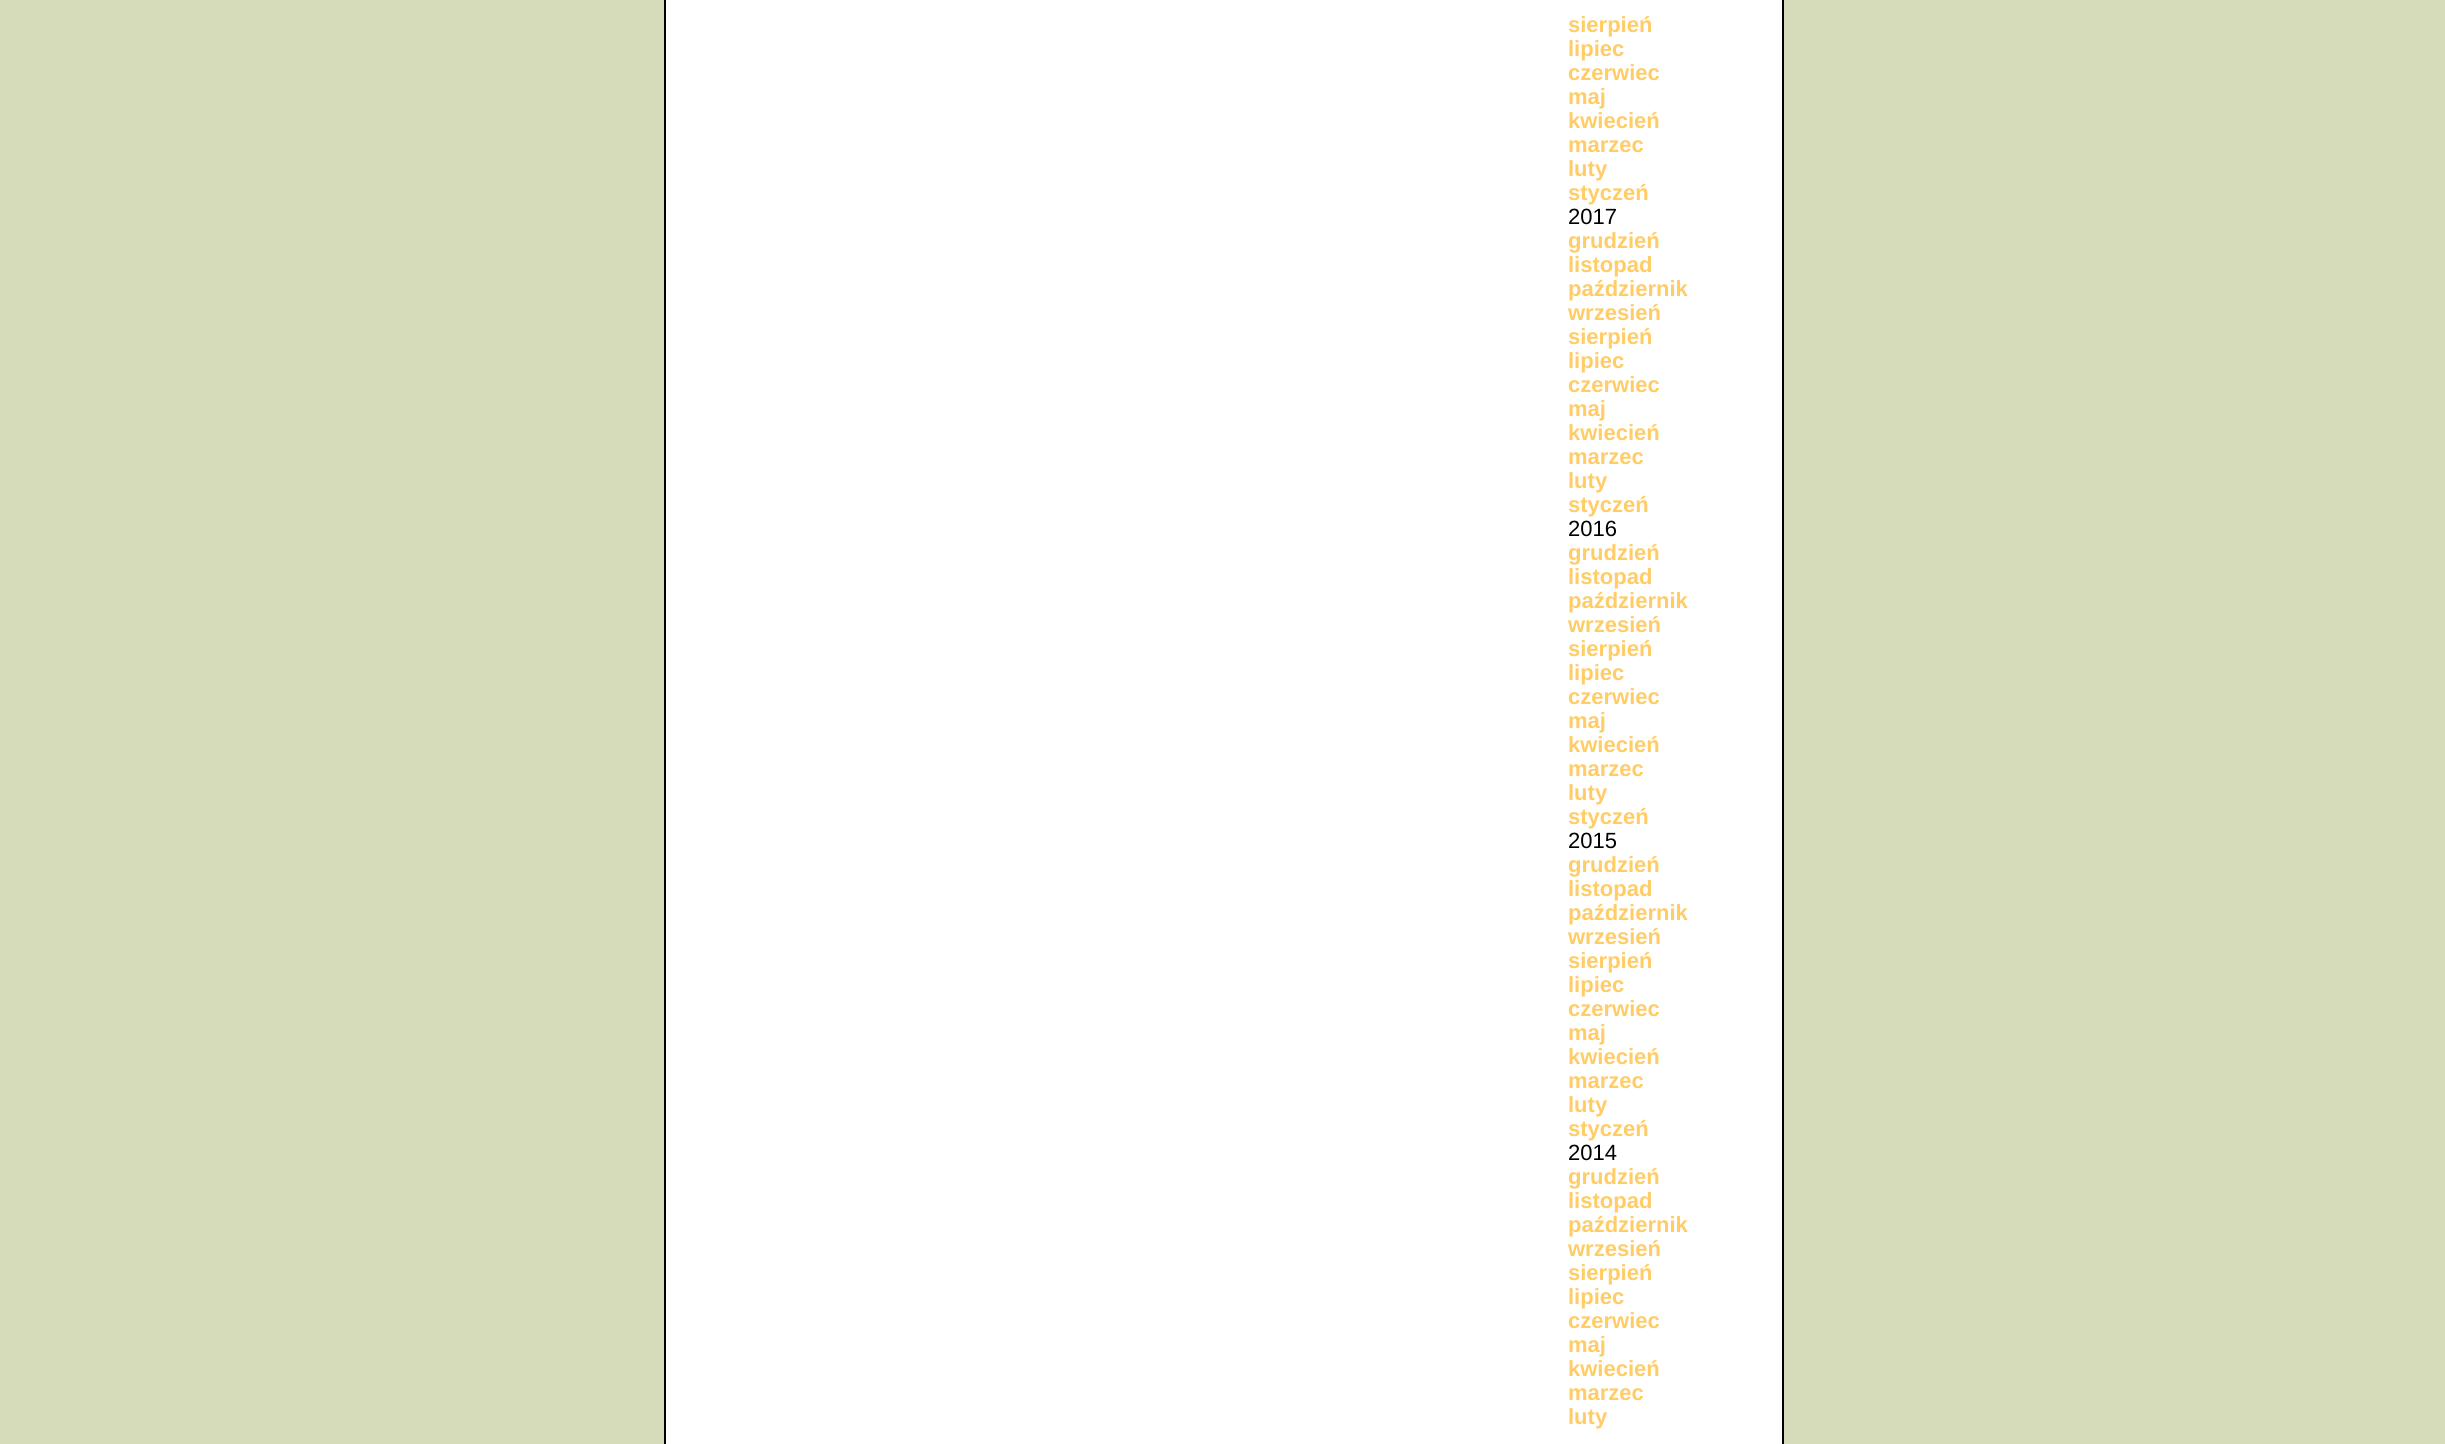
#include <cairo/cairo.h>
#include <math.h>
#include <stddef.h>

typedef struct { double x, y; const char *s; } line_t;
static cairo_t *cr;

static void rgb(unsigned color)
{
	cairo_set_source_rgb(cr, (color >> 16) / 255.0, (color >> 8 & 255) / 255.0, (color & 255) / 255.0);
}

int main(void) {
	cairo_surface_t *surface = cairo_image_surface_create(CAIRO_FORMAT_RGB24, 2445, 1444);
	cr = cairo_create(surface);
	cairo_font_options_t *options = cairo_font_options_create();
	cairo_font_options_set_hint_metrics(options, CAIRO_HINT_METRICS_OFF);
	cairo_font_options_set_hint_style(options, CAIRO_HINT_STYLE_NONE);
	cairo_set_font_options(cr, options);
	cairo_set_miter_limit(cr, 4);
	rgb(0xd6dcba);
	cairo_paint(cr);
	rgb(0xffffff);
	cairo_rectangle(cr, 665, -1, 1118, 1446);
	cairo_fill_preserve(cr);
	rgb(0x000000);
	cairo_stroke(cr);
	cairo_select_font_face(cr, "Liberation Sans", CAIRO_FONT_SLANT_NORMAL, CAIRO_FONT_WEIGHT_BOLD);
	cairo_set_font_size(cr, 22);
	rgb(0xffcc66);
	{
		static const line_t items[] = {
			{1568, 32, "sierpień"},
			{1568, 56, "lipiec"},
			{1568, 80, "czerwiec"},
			{1568, 104, "maj"},
			{1568, 128, "kwiecień"},
			{1568, 152, "marzec"},
			{1568, 176, "luty"},
			{1568, 200, "styczeń"},
		};
		for (size_t i = 0; i < sizeof items / sizeof *items; i++) {
			cairo_move_to(cr, items[i].x, items[i].y);
			cairo_show_text(cr, items[i].s);
		}
	}
	cairo_select_font_face(cr, "Liberation Sans", CAIRO_FONT_SLANT_NORMAL, CAIRO_FONT_WEIGHT_NORMAL);
	rgb(0x000000);
	cairo_move_to(cr, 1568, 224);
	cairo_show_text(cr, "2017");
	cairo_select_font_face(cr, "Liberation Sans", CAIRO_FONT_SLANT_NORMAL, CAIRO_FONT_WEIGHT_BOLD);
	rgb(0xffcc66);
	{
		static const line_t items[] = {
			{1568, 248, "grudzień"},
			{1568, 272, "listopad"},
			{1568, 296, "październik"},
			{1568, 320, "wrzesień"},
			{1568, 344, "sierpień"},
			{1568, 368, "lipiec"},
			{1568, 392, "czerwiec"},
			{1568, 416, "maj"},
			{1568, 440, "kwiecień"},
			{1568, 464, "marzec"},
			{1568, 488, "luty"},
			{1568, 512, "styczeń"},
		};
		for (size_t i = 0; i < sizeof items / sizeof *items; i++) {
			cairo_move_to(cr, items[i].x, items[i].y);
			cairo_show_text(cr, items[i].s);
		}
	}
	cairo_select_font_face(cr, "Liberation Sans", CAIRO_FONT_SLANT_NORMAL, CAIRO_FONT_WEIGHT_NORMAL);
	rgb(0x000000);
	cairo_move_to(cr, 1568, 536);
	cairo_show_text(cr, "2016");
	cairo_select_font_face(cr, "Liberation Sans", CAIRO_FONT_SLANT_NORMAL, CAIRO_FONT_WEIGHT_BOLD);
	rgb(0xffcc66);
	{
		static const line_t items[] = {
			{1568, 560, "grudzień"},
			{1568, 584, "listopad"},
			{1568, 608, "październik"},
			{1568, 632, "wrzesień"},
			{1568, 656, "sierpień"},
			{1568, 680, "lipiec"},
			{1568, 704, "czerwiec"},
			{1568, 728, "maj"},
			{1568, 752, "kwiecień"},
			{1568, 776, "marzec"},
			{1568, 800, "luty"},
			{1568, 824, "styczeń"},
		};
		for (size_t i = 0; i < sizeof items / sizeof *items; i++) {
			cairo_move_to(cr, items[i].x, items[i].y);
			cairo_show_text(cr, items[i].s);
		}
	}
	cairo_select_font_face(cr, "Liberation Sans", CAIRO_FONT_SLANT_NORMAL, CAIRO_FONT_WEIGHT_NORMAL);
	rgb(0x000000);
	cairo_move_to(cr, 1568, 848);
	cairo_show_text(cr, "2015");
	cairo_select_font_face(cr, "Liberation Sans", CAIRO_FONT_SLANT_NORMAL, CAIRO_FONT_WEIGHT_BOLD);
	rgb(0xffcc66);
	{
		static const line_t items[] = {
			{1568, 872, "grudzień"},
			{1568, 896, "listopad"},
			{1568, 920, "październik"},
			{1568, 944, "wrzesień"},
			{1568, 968, "sierpień"},
			{1568, 992, "lipiec"},
			{1568, 1016, "czerwiec"},
			{1568, 1040, "maj"},
			{1568, 1064, "kwiecień"},
			{1568, 1088, "marzec"},
			{1568, 1112, "luty"},
			{1568, 1136, "styczeń"},
		};
		for (size_t i = 0; i < sizeof items / sizeof *items; i++) {
			cairo_move_to(cr, items[i].x, items[i].y);
			cairo_show_text(cr, items[i].s);
		}
	}
	cairo_select_font_face(cr, "Liberation Sans", CAIRO_FONT_SLANT_NORMAL, CAIRO_FONT_WEIGHT_NORMAL);
	rgb(0x000000);
	cairo_move_to(cr, 1568, 1160);
	cairo_show_text(cr, "2014");
	cairo_select_font_face(cr, "Liberation Sans", CAIRO_FONT_SLANT_NORMAL, CAIRO_FONT_WEIGHT_BOLD);
	rgb(0xffcc66);
	{
		static const line_t items[] = {
			{1568, 1184, "grudzień"},
			{1568, 1208, "listopad"},
			{1568, 1232, "październik"},
			{1568, 1256, "wrzesień"},
			{1568, 1280, "sierpień"},
			{1568, 1304, "lipiec"},
			{1568, 1328, "czerwiec"},
			{1568, 1352, "maj"},
			{1568, 1376, "kwiecień"},
			{1568, 1400, "marzec"},
			{1568, 1424, "luty"},
		};
		for (size_t i = 0; i < sizeof items / sizeof *items; i++) {
			cairo_move_to(cr, items[i].x, items[i].y);
			cairo_show_text(cr, items[i].s);
		}
	}
	cairo_surface_write_to_png(surface, "page.png");
	cairo_font_options_destroy(options);
	cairo_destroy(cr);
	cairo_surface_destroy(surface);
	return 0;
}
